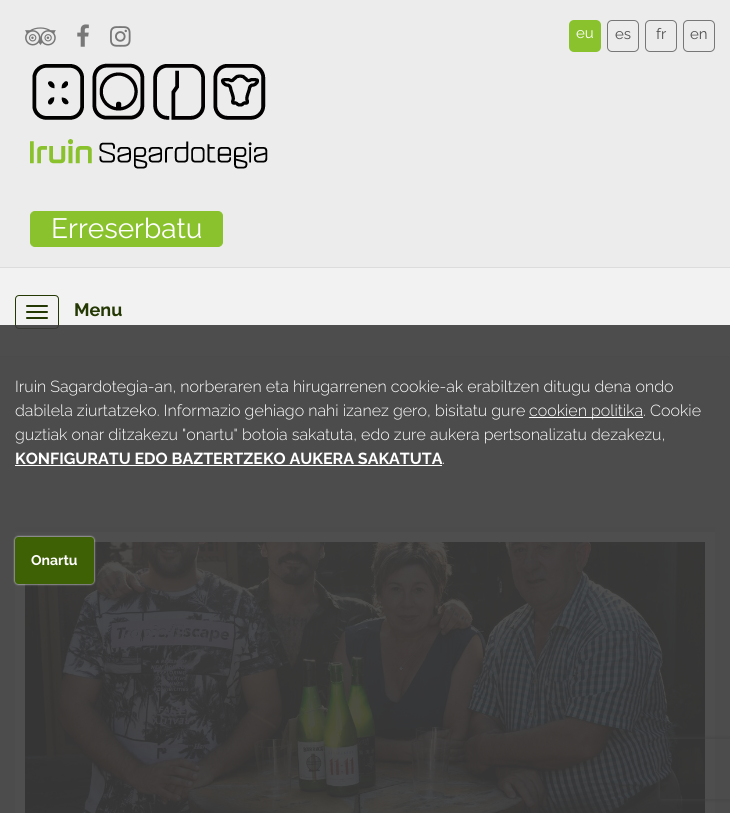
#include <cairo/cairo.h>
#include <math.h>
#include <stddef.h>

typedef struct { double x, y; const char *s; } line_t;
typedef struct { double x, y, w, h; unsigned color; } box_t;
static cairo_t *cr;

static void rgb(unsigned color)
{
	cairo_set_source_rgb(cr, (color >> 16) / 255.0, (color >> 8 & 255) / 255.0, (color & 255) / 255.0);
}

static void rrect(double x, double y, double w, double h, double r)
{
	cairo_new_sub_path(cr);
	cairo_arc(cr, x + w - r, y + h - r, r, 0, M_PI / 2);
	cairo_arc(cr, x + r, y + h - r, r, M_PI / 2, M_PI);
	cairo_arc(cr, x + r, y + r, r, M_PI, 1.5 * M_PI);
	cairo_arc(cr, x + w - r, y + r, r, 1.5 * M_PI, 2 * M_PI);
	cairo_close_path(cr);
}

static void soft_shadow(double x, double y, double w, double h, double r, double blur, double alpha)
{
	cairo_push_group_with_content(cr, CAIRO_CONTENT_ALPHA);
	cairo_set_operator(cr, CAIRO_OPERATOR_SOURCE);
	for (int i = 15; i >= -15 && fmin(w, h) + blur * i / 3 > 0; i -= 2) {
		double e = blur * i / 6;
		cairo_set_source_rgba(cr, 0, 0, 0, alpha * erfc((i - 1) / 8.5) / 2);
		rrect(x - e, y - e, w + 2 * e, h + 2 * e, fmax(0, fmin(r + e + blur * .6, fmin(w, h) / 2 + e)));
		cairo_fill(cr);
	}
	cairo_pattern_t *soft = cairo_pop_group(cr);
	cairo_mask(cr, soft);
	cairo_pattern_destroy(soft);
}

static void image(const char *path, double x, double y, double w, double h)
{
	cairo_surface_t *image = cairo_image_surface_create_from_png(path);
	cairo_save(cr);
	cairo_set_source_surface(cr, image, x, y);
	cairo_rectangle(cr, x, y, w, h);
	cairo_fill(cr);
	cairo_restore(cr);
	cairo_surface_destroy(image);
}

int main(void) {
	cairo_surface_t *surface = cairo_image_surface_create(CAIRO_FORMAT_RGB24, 730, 813);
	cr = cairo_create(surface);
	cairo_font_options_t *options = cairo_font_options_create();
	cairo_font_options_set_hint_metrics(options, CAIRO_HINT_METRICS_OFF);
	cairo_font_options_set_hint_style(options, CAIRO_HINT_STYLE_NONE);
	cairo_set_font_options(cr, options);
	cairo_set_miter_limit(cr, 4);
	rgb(0xececec);
	cairo_paint(cr);
	image("img/1.png", 25, 27, 31, 19);
	image("img/2.png", 77, 24, 12, 23);
	image("img/3.png", 110, 26, 21, 21);
	rgb(0x89c22d);
	rrect(569, 20, 32, 32, 5);
	cairo_fill(cr);
	rrect(607.5, 20.5, 31, 31, 4.5);
	rgb(0x777777);
	cairo_set_line_width(cr, 1);
	cairo_stroke(cr);
	rrect(645.5, 20.5, 31, 31, 4.5);
	cairo_stroke(cr);
	rrect(683.5, 20.5, 31, 31, 4.5);
	cairo_stroke(cr);
	image("img/4.png", 30, 63, 238, 106);
	rgb(0x89c22d);
	rrect(30.5, 211.5, 192, 35, 4.5);
	cairo_fill_preserve(cr);
	cairo_stroke(cr);
	{
		static const box_t items[] = {
			{0, 268, 730, 88, 0xf2f2f2},
			{0, 267, 730, 1, 0xdcdcdc},
			{0, 356, 730, 1, 0xdcdcdc},
		};
		for (size_t i = 0; i < sizeof items / sizeof *items; i++) {
			rgb(items[i].color);
			cairo_rectangle(cr, items[i].x, items[i].y, items[i].w, items[i].h);
			cairo_fill(cr);
		}
	}
	rrect(15.5, 295.5, 43, 33, 3.5);
	rgb(0x233803);
	cairo_stroke(cr);
	rrect(26, 305, 22, 2, 1);
	cairo_fill(cr);
	rrect(26, 311, 22, 2, 1);
	cairo_fill(cr);
	rrect(26, 317, 22, 2, 1);
	cairo_fill(cr);
	rgb(0xffffff);
	cairo_rectangle(cr, 15, 532, 700, 281);
	cairo_fill(cr);
	rgb(0xdcdcdc);
	cairo_rectangle(cr, 15, 527, 700, 5);
	cairo_fill(cr);
	image("img/5.png", 25, 542, 680, 271);
	cairo_save(cr);
	cairo_set_fill_rule(cr, CAIRO_FILL_RULE_EVEN_ODD);
	cairo_new_path(cr);
	cairo_move_to(cr, 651, 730);
	cairo_line_to(cr, 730, 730);
	cairo_line_to(cr, 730, 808);
	cairo_line_to(cr, 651, 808);
	cairo_close_path(cr);
	cairo_move_to(cr, 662, 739);
	cairo_line_to(cr, 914, 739);
	cairo_curve_to(cr, 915, 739, 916, 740, 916, 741);
	cairo_line_to(cr, 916, 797);
	cairo_curve_to(cr, 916, 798, 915, 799, 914, 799);
	cairo_line_to(cr, 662, 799);
	cairo_curve_to(cr, 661, 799, 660, 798, 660, 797);
	cairo_line_to(cr, 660, 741);
	cairo_curve_to(cr, 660, 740, 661, 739, 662, 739);
	cairo_close_path(cr);
	cairo_clip(cr);
	rgb(0x808080);
	soft_shadow(660, 739, 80, 60, 2, 2.5, 1);
	cairo_restore(cr);
	cairo_set_source_rgba(cr, 0.231, 0.231, 0.231, 0.9);
	cairo_rectangle(cr, 0, 325, 730, 488);
	cairo_fill(cr);
	rgb(0xffffff);
	cairo_rectangle(cr, 529, 417, 114, 1);
	cairo_fill(cr);
	cairo_rectangle(cr, 15, 465, 427, 1);
	cairo_fill(cr);
	rgb(0xffffff);
	soft_shadow(15, 537, 79, 47, 3, 1, 1);
	rgb(0x3e6106);
	rrect(15, 537, 79, 47, 3);
	cairo_fill(cr);
	cairo_select_font_face(cr, "Raleway", CAIRO_FONT_SLANT_NORMAL, CAIRO_FONT_WEIGHT_NORMAL);
	cairo_set_font_size(cr, 15);
	rgb(0xffffff);
	cairo_move_to(cr, 576, 38);
	cairo_show_text(cr, "eu");
	rgb(0x505050);
	{
		static const line_t items[] = {
			{615, 39, "es"},
			{656, 39, "fr"},
			{690, 39, "en"},
		};
		for (size_t i = 0; i < sizeof items / sizeof *items; i++) {
			cairo_move_to(cr, items[i].x, items[i].y);
			cairo_show_text(cr, items[i].s);
		}
	}
	cairo_set_font_size(cr, 28);
	rgb(0xffffff);
	cairo_move_to(cr, 51, 238);
	cairo_show_text(cr, "Erreserbatu");
	cairo_select_font_face(cr, "Raleway", CAIRO_FONT_SLANT_NORMAL, CAIRO_FONT_WEIGHT_BOLD);
	cairo_set_font_size(cr, 18);
	rgb(0x233803);
	cairo_move_to(cr, 74, 316);
	cairo_show_text(cr, "Menu");
	cairo_select_font_face(cr, "Raleway Light", CAIRO_FONT_SLANT_NORMAL, CAIRO_FONT_WEIGHT_NORMAL);
	cairo_set_font_size(cr, 16);
	rgb(0xffffff);
	{
		static const line_t items[] = {
			{15, 392, "Iruin Sagardotegia-an, norberaren eta hirugarrenen cookie-ak erabiltzen ditugu dena ondo"},
			{15, 416, "dabilela ziurtatzeko. Informazio gehiago nahi izanez gero, bisitatu gure"},
			{529, 416, "cookien politika. Cookie"},
			{15, 440, "guztiak onar ditzakezu \"onartu\" botoia sakatuta, edo zure aukera pertsonalizatu dezakezu,"},
		};
		for (size_t i = 0; i < sizeof items / sizeof *items; i++) {
			cairo_move_to(cr, items[i].x, items[i].y);
			cairo_show_text(cr, items[i].s);
		}
	}
	cairo_select_font_face(cr, "Raleway", CAIRO_FONT_SLANT_NORMAL, CAIRO_FONT_WEIGHT_BOLD);
	cairo_move_to(cr, 15, 464);
	cairo_show_text(cr, "KONFIGURATU EDO BAZTERTZEKO AUKERA SAKATUTA");
	cairo_select_font_face(cr, "Raleway Light", CAIRO_FONT_SLANT_NORMAL, CAIRO_FONT_WEIGHT_NORMAL);
	cairo_move_to(cr, 442, 464);
	cairo_show_text(cr, ".");
	cairo_select_font_face(cr, "Raleway", CAIRO_FONT_SLANT_NORMAL, CAIRO_FONT_WEIGHT_BOLD);
	cairo_set_font_size(cr, 14);
	cairo_move_to(cr, 31, 565);
	cairo_show_text(cr, "Onartu");
	cairo_surface_write_to_png(surface, "page.png");
	cairo_font_options_destroy(options);
	cairo_destroy(cr);
	cairo_surface_destroy(surface);
	return 0;
}
